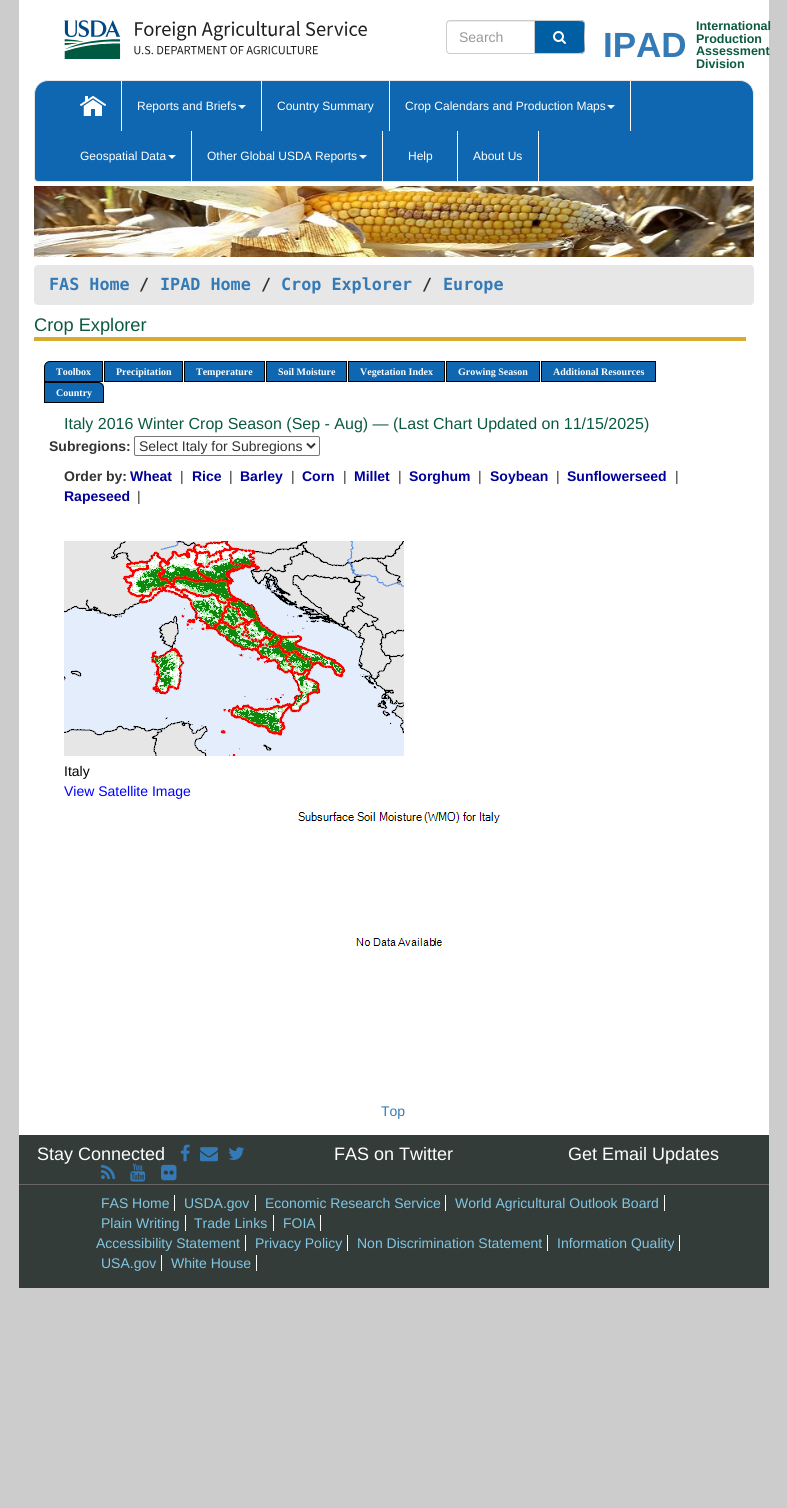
#include <cairo/cairo.h>
#include <math.h>
#include <stddef.h>

typedef struct { double x, y; const char *s; } line_t;
typedef struct { double x, y, w, h; unsigned color; } box_t;
static cairo_t *cr;

static void rgb(unsigned color)
{
	cairo_set_source_rgb(cr, (color >> 16) / 255.0, (color >> 8 & 255) / 255.0, (color & 255) / 255.0);
}

static void rrect(double x, double y, double w, double h, double r)
{
	cairo_new_sub_path(cr);
	cairo_arc(cr, x + w - r, y + h - r, r, 0, M_PI / 2);
	cairo_arc(cr, x + r, y + h - r, r, M_PI / 2, M_PI);
	cairo_arc(cr, x + r, y + r, r, M_PI, 1.5 * M_PI);
	cairo_arc(cr, x + w - r, y + r, r, 1.5 * M_PI, 2 * M_PI);
	cairo_close_path(cr);
}

static void image(const char *path, double x, double y, double w, double h)
{
	cairo_surface_t *image = cairo_image_surface_create_from_png(path);
	cairo_save(cr);
	cairo_set_source_surface(cr, image, x, y);
	cairo_rectangle(cr, x, y, w, h);
	cairo_fill(cr);
	cairo_restore(cr);
	cairo_surface_destroy(image);
}

int main(void) {
	cairo_surface_t *surface = cairo_image_surface_create(CAIRO_FORMAT_RGB24, 787, 1508);
	cr = cairo_create(surface);
	cairo_font_options_t *options = cairo_font_options_create();
	cairo_font_options_set_hint_metrics(options, CAIRO_HINT_METRICS_OFF);
	cairo_font_options_set_hint_style(options, CAIRO_HINT_STYLE_NONE);
	cairo_set_font_options(cr, options);
	cairo_set_miter_limit(cr, 4);
	rgb(0xcccccc);
	cairo_paint(cr);
	rgb(0xffffff);
	cairo_rectangle(cr, 19, 0, 750, 1135);
	cairo_fill(cr);
	image("img/1.png", 64, 20, 303, 39);
	rgb(0xececec);
	cairo_new_path(cr);
	cairo_move_to(cr, 450, 22);
	cairo_line_to(cr, 534, 22);
	cairo_line_to(cr, 534, 21);
	cairo_line_to(cr, 450, 21);
	cairo_curve_to(cr, 448, 21, 447, 22, 447, 24);
	cairo_line_to(cr, 447, 25);
	cairo_curve_to(cr, 447, 23, 448, 22, 450, 22);
	cairo_close_path(cr);
	cairo_fill(cr);
	cairo_new_path(cr);
	cairo_move_to(cr, 450, 20.5);
	cairo_line_to(cr, 534.5, 20.5);
	cairo_line_to(cr, 534.5, 53.5);
	cairo_line_to(cr, 450, 53.5);
	cairo_curve_to(cr, 448, 53.5, 446.5, 52, 446.5, 50);
	cairo_line_to(cr, 446.5, 24);
	cairo_curve_to(cr, 446.5, 22, 448, 20.5, 450, 20.5);
	cairo_close_path(cr);
	rgb(0xcccccc);
	cairo_set_line_width(cr, 1);
	cairo_stroke(cr);
	rgb(0x005ea2);
	cairo_new_path(cr);
	cairo_move_to(cr, 535, 20);
	cairo_line_to(cr, 581, 20);
	cairo_curve_to(cr, 583, 20, 585, 22, 585, 24);
	cairo_line_to(cr, 585, 50);
	cairo_curve_to(cr, 585, 52, 583, 54, 581, 54);
	cairo_line_to(cr, 535, 54);
	cairo_close_path(cr);
	cairo_fill(cr);
	rgb(0xcccccc);
	cairo_set_fill_rule(cr, CAIRO_FILL_RULE_EVEN_ODD);
	cairo_new_path(cr);
	cairo_move_to(cr, 535, 20);
	cairo_line_to(cr, 581, 20);
	cairo_curve_to(cr, 583, 20, 585, 22, 585, 24);
	cairo_line_to(cr, 585, 50);
	cairo_curve_to(cr, 585, 52, 583, 54, 581, 54);
	cairo_line_to(cr, 535, 54);
	cairo_close_path(cr);
	cairo_move_to(cr, 535, 21);
	cairo_line_to(cr, 573, 21);
	cairo_curve_to(cr, 588, 21, 584, 21, 584, 37);
	cairo_curve_to(cr, 584, 53, 588, 53, 573, 53);
	cairo_line_to(cr, 535, 53);
	cairo_close_path(cr);
	cairo_fill(cr);
	image("img/2.png", 553, 31, 13, 13);
	rgb(0x0e67b0);
	cairo_new_path(cr);
	cairo_move_to(cr, 48, 80.5);
	cairo_line_to(cr, 740, 80.5);
	cairo_curve_to(cr, 747.5, 80.5, 753.5, 86.5, 753.5, 94);
	cairo_line_to(cr, 753.5, 178);
	cairo_curve_to(cr, 753.5, 180, 752, 181.5, 750, 181.5);
	cairo_line_to(cr, 38, 181.5);
	cairo_curve_to(cr, 36, 181.5, 34.5, 180, 34.5, 178);
	cairo_line_to(cr, 34.5, 94);
	cairo_curve_to(cr, 34.5, 86.5, 40.5, 80.5, 48, 80.5);
	cairo_close_path(cr);
	cairo_fill_preserve(cr);
	rgb(0xe7e7e7);
	cairo_stroke(cr);
	rgb(0xffffff);
	cairo_rectangle(cr, 121, 81, 1, 50);
	cairo_fill(cr);
	image("img/3.png", 80, 96, 26, 20);
	cairo_rectangle(cr, 261, 81, 1, 50);
	cairo_fill(cr);
	cairo_set_fill_rule(cr, CAIRO_FILL_RULE_WINDING);
	cairo_new_path(cr);
	cairo_move_to(cr, 238, 105);
	cairo_line_to(cr, 246, 105);
	cairo_line_to(cr, 242, 109);
	cairo_close_path(cr);
	cairo_fill(cr);
	cairo_rectangle(cr, 389, 81, 1, 50);
	cairo_fill(cr);
	cairo_rectangle(cr, 630, 81, 1, 50);
	cairo_fill(cr);
	cairo_new_path(cr);
	cairo_move_to(cr, 607, 105);
	cairo_line_to(cr, 615, 105);
	cairo_line_to(cr, 611, 109);
	cairo_close_path(cr);
	cairo_fill(cr);
	cairo_rectangle(cr, 191, 131, 1, 50);
	cairo_fill(cr);
	cairo_new_path(cr);
	cairo_move_to(cr, 168, 155);
	cairo_line_to(cr, 176, 155);
	cairo_line_to(cr, 172, 159);
	cairo_close_path(cr);
	cairo_fill(cr);
	cairo_rectangle(cr, 382, 131, 1, 50);
	cairo_fill(cr);
	cairo_new_path(cr);
	cairo_move_to(cr, 359, 155);
	cairo_line_to(cr, 367, 155);
	cairo_line_to(cr, 363, 159);
	cairo_close_path(cr);
	cairo_fill(cr);
	cairo_rectangle(cr, 457, 131, 1, 50);
	cairo_fill(cr);
	cairo_rectangle(cr, 538, 131, 1, 50);
	cairo_fill(cr);
	image("img/4.png", 34, 186, 720, 71);
	rgb(0xe7e7e7);
	rrect(34, 265, 720, 40, 4);
	cairo_fill(cr);
	rgb(0xd8ab2d);
	cairo_rectangle(cr, 34, 337, 712, 4);
	cairo_fill(cr);
	rgb(0x0e67b0);
	cairo_new_path(cr);
	cairo_move_to(cr, 50, 361.5);
	cairo_line_to(cr, 102.5, 361.5);
	cairo_line_to(cr, 102.5, 381.5);
	cairo_line_to(cr, 44.5, 381.5);
	cairo_line_to(cr, 44.5, 367);
	cairo_curve_to(cr, 44.5, 364, 47, 361.5, 50, 361.5);
	cairo_close_path(cr);
	cairo_fill_preserve(cr);
	rgb(0x000000);
	cairo_stroke(cr);
	rgb(0x0e67b0);
	cairo_rectangle(cr, 104.5, 361.5, 78, 20);
	cairo_fill_preserve(cr);
	rgb(0x000000);
	cairo_stroke(cr);
	rgb(0x0e67b0);
	cairo_rectangle(cr, 184.5, 361.5, 80, 20);
	cairo_fill_preserve(cr);
	rgb(0x000000);
	cairo_stroke(cr);
	rgb(0x0e67b0);
	cairo_rectangle(cr, 266.5, 361.5, 80, 20);
	cairo_fill_preserve(cr);
	rgb(0x000000);
	cairo_stroke(cr);
	rgb(0x0e67b0);
	cairo_rectangle(cr, 348.5, 361.5, 96, 20);
	cairo_fill_preserve(cr);
	rgb(0x000000);
	cairo_stroke(cr);
	rgb(0x0e67b0);
	cairo_rectangle(cr, 446.5, 361.5, 93, 20);
	cairo_fill_preserve(cr);
	rgb(0x000000);
	cairo_stroke(cr);
	rgb(0x0e67b0);
	cairo_rectangle(cr, 541.5, 361.5, 114, 20);
	cairo_fill_preserve(cr);
	rgb(0x000000);
	cairo_stroke(cr);
	rgb(0xc8c8c8);
	cairo_new_path(cr);
	cairo_move_to(cr, 44, 382);
	cairo_line_to(cr, 99, 382);
	cairo_curve_to(cr, 102.5, 382, 105, 384.5, 105, 388);
	cairo_line_to(cr, 105, 403);
	cairo_line_to(cr, 44, 403);
	cairo_close_path(cr);
	cairo_fill(cr);
	rgb(0xffffff);
	cairo_rectangle(cr, 104, 385, 1, 18);
	cairo_fill(cr);
	rgb(0x0e67b0);
	cairo_new_path(cr);
	cairo_move_to(cr, 44.5, 382.5);
	cairo_line_to(cr, 98, 382.5);
	cairo_curve_to(cr, 101, 382.5, 103.5, 385, 103.5, 388);
	cairo_line_to(cr, 103.5, 402.5);
	cairo_line_to(cr, 44.5, 402.5);
	cairo_close_path(cr);
	cairo_fill_preserve(cr);
	rgb(0x000000);
	cairo_stroke(cr);
	rrect(134.5, 436.5, 185, 19, 1.5);
	rgb(0x767676);
	cairo_stroke(cr);
	cairo_new_path(cr);
	cairo_move_to(cr, 307, 443.5);
	cairo_line_to(cr, 311, 447.5);
	cairo_line_to(cr, 315, 443.5);
	rgb(0x333333);
	cairo_set_line_width(cr, 2);
	cairo_stroke(cr);
	image("img/5.png", 64, 541, 340, 215);
	image("img/6.png", 298, 812, 202, 134);
	rgb(0x343c39);
	cairo_rectangle(cr, 19, 1135, 750, 49);
	cairo_fill(cr);
	image("img/7.png", 180, 1144, 10, 18);
	image("img/8.png", 200, 1147, 18, 15);
	image("img/9.png", 228, 1147, 17, 13);
	image("img/10.png", 101, 1164, 15, 15);
	image("img/12.png", 161, 1164, 16, 17);
	{
		static const box_t items[] = {
			{19, 1185, 750, 103, 0x343c39},
			{19, 1184, 750, 1, 0x666666},
			{174, 1195, 1, 16, 0xffffff},
			{255, 1195, 1, 16, 0xffffff},
			{445, 1195, 1, 16, 0xffffff},
			{664, 1195, 1, 16, 0xffffff},
			{185, 1215, 1, 16, 0xffffff},
			{273, 1215, 1, 16, 0xffffff},
			{320, 1215, 1, 16, 0xffffff},
			{245, 1235, 1, 16, 0xffffff},
			{347, 1235, 1, 16, 0xffffff},
			{547, 1235, 1, 16, 0xffffff},
			{679, 1235, 1, 16, 0xffffff},
			{161, 1255, 1, 16, 0xffffff},
			{256, 1255, 1, 16, 0xffffff},
		};
		for (size_t i = 0; i < sizeof items / sizeof *items; i++) {
			rgb(items[i].color);
			cairo_rectangle(cr, items[i].x, items[i].y, items[i].w, items[i].h);
			cairo_fill(cr);
		}
	}
	cairo_select_font_face(cr, "Liberation Sans", CAIRO_FONT_SLANT_NORMAL, CAIRO_FONT_WEIGHT_NORMAL);
	cairo_set_font_size(cr, 14);
	rgb(0x999999);
	cairo_move_to(cr, 459, 42);
	cairo_show_text(cr, "Search");
	cairo_select_font_face(cr, "Liberation Sans", CAIRO_FONT_SLANT_NORMAL, CAIRO_FONT_WEIGHT_BOLD);
	cairo_set_font_size(cr, 35);
	rgb(0x337ab7);
	cairo_move_to(cr, 603, 57);
	cairo_show_text(cr, "IPAD");
	cairo_set_font_size(cr, 12.5);
	rgb(0x0b5941);
	{
		static const line_t items[] = {
			{696, 30, "International"},
			{696, 43, "Production"},
			{696, 55, "Assessment"},
			{696, 68, "Division"},
		};
		for (size_t i = 0; i < sizeof items / sizeof *items; i++) {
			cairo_move_to(cr, items[i].x, items[i].y);
			cairo_show_text(cr, items[i].s);
		}
	}
	cairo_select_font_face(cr, "Liberation Sans", CAIRO_FONT_SLANT_NORMAL, CAIRO_FONT_WEIGHT_NORMAL);
	cairo_set_font_size(cr, 12);
	rgb(0xffffff);
	{
		static const line_t items[] = {
			{137, 110, "Reports and Briefs"},
			{277, 110, "Country Summary"},
			{405, 110, "Crop Calendars and Production Maps"},
			{80, 160, "Geospatial Data"},
			{207, 160, "Other Global USDA Reports"},
			{408, 160, "Help"},
			{473, 160, "About Us"},
		};
		for (size_t i = 0; i < sizeof items / sizeof *items; i++) {
			cairo_move_to(cr, items[i].x, items[i].y);
			cairo_show_text(cr, items[i].s);
		}
	}
	cairo_select_font_face(cr, "DejaVu Sans Mono", CAIRO_FONT_SLANT_NORMAL, CAIRO_FONT_WEIGHT_BOLD);
	cairo_set_font_size(cr, 16.75);
	rgb(0x337ab7);
	cairo_move_to(cr, 49, 290);
	cairo_show_text(cr, "FAS Home");
	rgb(0x333333);
	cairo_move_to(cr, 139, 290);
	cairo_show_text(cr, "/");
	rgb(0x337ab7);
	cairo_move_to(cr, 160, 290);
	cairo_show_text(cr, "IPAD Home");
	rgb(0x333333);
	cairo_move_to(cr, 261, 290);
	cairo_show_text(cr, "/");
	rgb(0x337ab7);
	cairo_move_to(cr, 281, 290);
	cairo_show_text(cr, "Crop Explorer");
	rgb(0x333333);
	cairo_move_to(cr, 422, 290);
	cairo_show_text(cr, "/");
	rgb(0x337ab7);
	cairo_move_to(cr, 443, 290);
	cairo_show_text(cr, "Europe");
	cairo_select_font_face(cr, "Liberation Sans", CAIRO_FONT_SLANT_NORMAL, CAIRO_FONT_WEIGHT_NORMAL);
	cairo_set_font_size(cr, 18.25);
	rgb(0x0b5941);
	cairo_move_to(cr, 34, 331);
	cairo_show_text(cr, "Crop Explorer");
	cairo_select_font_face(cr, "Liberation Serif", CAIRO_FONT_SLANT_NORMAL, CAIRO_FONT_WEIGHT_BOLD);
	cairo_set_font_size(cr, 10);
	rgb(0xffffff);
	{
		static const line_t items[] = {
			{56, 375, "Toolbox"},
			{116, 375, "Precipitation"},
			{196, 375, "Temperature"},
			{278, 375, "Soil Moisture"},
			{360, 375, "Vegetation Index"},
			{458, 375, "Growing Season"},
			{553, 375, "Additional Resources"},
			{56, 396, "Country"},
		};
		for (size_t i = 0; i < sizeof items / sizeof *items; i++) {
			cairo_move_to(cr, items[i].x, items[i].y);
			cairo_show_text(cr, items[i].s);
		}
	}
	cairo_select_font_face(cr, "Liberation Sans", CAIRO_FONT_SLANT_NORMAL, CAIRO_FONT_WEIGHT_NORMAL);
	cairo_set_font_size(cr, 16);
	rgb(0x0b5941);
	cairo_move_to(cr, 64, 429);
	cairo_show_text(cr, "Italy 2016 Winter Crop Season (Sep - Aug) — (Last Chart Updated on 11/15/2025)");
	cairo_select_font_face(cr, "Liberation Sans", CAIRO_FONT_SLANT_NORMAL, CAIRO_FONT_WEIGHT_BOLD);
	cairo_set_font_size(cr, 14);
	rgb(0x333333);
	cairo_move_to(cr, 49, 451);
	cairo_show_text(cr, "Subregions:");
	cairo_select_font_face(cr, "Liberation Sans", CAIRO_FONT_SLANT_NORMAL, CAIRO_FONT_WEIGHT_NORMAL);
	cairo_move_to(cr, 139, 451);
	cairo_show_text(cr, "Select Italy for Subregions");
	cairo_select_font_face(cr, "Liberation Sans", CAIRO_FONT_SLANT_NORMAL, CAIRO_FONT_WEIGHT_BOLD);
	cairo_move_to(cr, 64, 481);
	cairo_show_text(cr, "Order by:");
	rgb(0x000099);
	cairo_move_to(cr, 130, 481);
	cairo_show_text(cr, "Wheat");
	cairo_select_font_face(cr, "Liberation Sans", CAIRO_FONT_SLANT_NORMAL, CAIRO_FONT_WEIGHT_NORMAL);
	rgb(0x333333);
	cairo_move_to(cr, 180, 481);
	cairo_show_text(cr, "|");
	cairo_select_font_face(cr, "Liberation Sans", CAIRO_FONT_SLANT_NORMAL, CAIRO_FONT_WEIGHT_BOLD);
	rgb(0x000099);
	cairo_move_to(cr, 192, 481);
	cairo_show_text(cr, "Rice");
	cairo_select_font_face(cr, "Liberation Sans", CAIRO_FONT_SLANT_NORMAL, CAIRO_FONT_WEIGHT_NORMAL);
	rgb(0x333333);
	cairo_move_to(cr, 229, 481);
	cairo_show_text(cr, "|");
	cairo_select_font_face(cr, "Liberation Sans", CAIRO_FONT_SLANT_NORMAL, CAIRO_FONT_WEIGHT_BOLD);
	rgb(0x000099);
	cairo_move_to(cr, 240, 481);
	cairo_show_text(cr, "Barley");
	cairo_select_font_face(cr, "Liberation Sans", CAIRO_FONT_SLANT_NORMAL, CAIRO_FONT_WEIGHT_NORMAL);
	rgb(0x333333);
	cairo_move_to(cr, 291, 481);
	cairo_show_text(cr, "|");
	cairo_select_font_face(cr, "Liberation Sans", CAIRO_FONT_SLANT_NORMAL, CAIRO_FONT_WEIGHT_BOLD);
	rgb(0x000099);
	cairo_move_to(cr, 302, 481);
	cairo_show_text(cr, "Corn");
	cairo_select_font_face(cr, "Liberation Sans", CAIRO_FONT_SLANT_NORMAL, CAIRO_FONT_WEIGHT_NORMAL);
	rgb(0x333333);
	cairo_move_to(cr, 343, 481);
	cairo_show_text(cr, "|");
	cairo_select_font_face(cr, "Liberation Sans", CAIRO_FONT_SLANT_NORMAL, CAIRO_FONT_WEIGHT_BOLD);
	rgb(0x000099);
	cairo_move_to(cr, 354, 481);
	cairo_show_text(cr, "Millet");
	cairo_select_font_face(cr, "Liberation Sans", CAIRO_FONT_SLANT_NORMAL, CAIRO_FONT_WEIGHT_NORMAL);
	rgb(0x333333);
	cairo_move_to(cr, 398, 481);
	cairo_show_text(cr, "|");
	cairo_select_font_face(cr, "Liberation Sans", CAIRO_FONT_SLANT_NORMAL, CAIRO_FONT_WEIGHT_BOLD);
	rgb(0x000099);
	cairo_move_to(cr, 409, 481);
	cairo_show_text(cr, "Sorghum");
	cairo_select_font_face(cr, "Liberation Sans", CAIRO_FONT_SLANT_NORMAL, CAIRO_FONT_WEIGHT_NORMAL);
	rgb(0x333333);
	cairo_move_to(cr, 478, 481);
	cairo_show_text(cr, "|");
	cairo_select_font_face(cr, "Liberation Sans", CAIRO_FONT_SLANT_NORMAL, CAIRO_FONT_WEIGHT_BOLD);
	rgb(0x000099);
	cairo_move_to(cr, 490, 481);
	cairo_show_text(cr, "Soybean");
	cairo_select_font_face(cr, "Liberation Sans", CAIRO_FONT_SLANT_NORMAL, CAIRO_FONT_WEIGHT_NORMAL);
	rgb(0x333333);
	cairo_move_to(cr, 556, 481);
	cairo_show_text(cr, "|");
	cairo_select_font_face(cr, "Liberation Sans", CAIRO_FONT_SLANT_NORMAL, CAIRO_FONT_WEIGHT_BOLD);
	rgb(0x000099);
	cairo_move_to(cr, 567, 481);
	cairo_show_text(cr, "Sunflowerseed");
	cairo_select_font_face(cr, "Liberation Sans", CAIRO_FONT_SLANT_NORMAL, CAIRO_FONT_WEIGHT_NORMAL);
	rgb(0x333333);
	cairo_move_to(cr, 675, 481);
	cairo_show_text(cr, "|");
	cairo_select_font_face(cr, "Liberation Sans", CAIRO_FONT_SLANT_NORMAL, CAIRO_FONT_WEIGHT_BOLD);
	rgb(0x000099);
	cairo_move_to(cr, 64, 501);
	cairo_show_text(cr, "Rapeseed");
	cairo_select_font_face(cr, "Liberation Sans", CAIRO_FONT_SLANT_NORMAL, CAIRO_FONT_WEIGHT_NORMAL);
	rgb(0x333333);
	cairo_move_to(cr, 137, 501);
	cairo_show_text(cr, "|");
	rgb(0x000000);
	cairo_move_to(cr, 64, 776);
	cairo_show_text(cr, "Italy");
	rgb(0x0000ff);
	cairo_move_to(cr, 64, 796);
	cairo_show_text(cr, "View Satellite Image");
	rgb(0x337ab7);
	cairo_move_to(cr, 381, 1116);
	cairo_show_text(cr, "Top");
	cairo_set_font_size(cr, 18);
	rgb(0xffffff);
	cairo_move_to(cr, 37, 1160);
	cairo_show_text(cr, "Stay Connected");
	image("img/11.png", 130, 1163, 16, 19);
	cairo_move_to(cr, 334, 1160);
	cairo_show_text(cr, "FAS on Twitter");
	cairo_move_to(cr, 568, 1160);
	cairo_show_text(cr, "Get Email Updates");
	cairo_set_font_size(cr, 14);
	rgb(0x81c6e3);
	{
		static const line_t items[] = {
			{101, 1208, "FAS Home"},
			{184, 1208, "USDA.gov"},
			{265, 1208, "Economic Research Service"},
			{455, 1208, "World Agricultural Outlook Board"},
			{101, 1228, "Plain Writing"},
			{194, 1228, "Trade Links"},
			{283, 1228, "FOIA"},
			{96, 1248, "Accessibility Statement"},
			{255, 1248, "Privacy Policy"},
			{357, 1248, "Non Discrimination Statement"},
			{557, 1248, "Information Quality"},
			{101, 1268, "USA.gov"},
			{171, 1268, "White House"},
		};
		for (size_t i = 0; i < sizeof items / sizeof *items; i++) {
			cairo_move_to(cr, items[i].x, items[i].y);
			cairo_show_text(cr, items[i].s);
		}
	}
	cairo_surface_write_to_png(surface, "page.png");
	cairo_font_options_destroy(options);
	cairo_destroy(cr);
	cairo_surface_destroy(surface);
	return 0;
}
